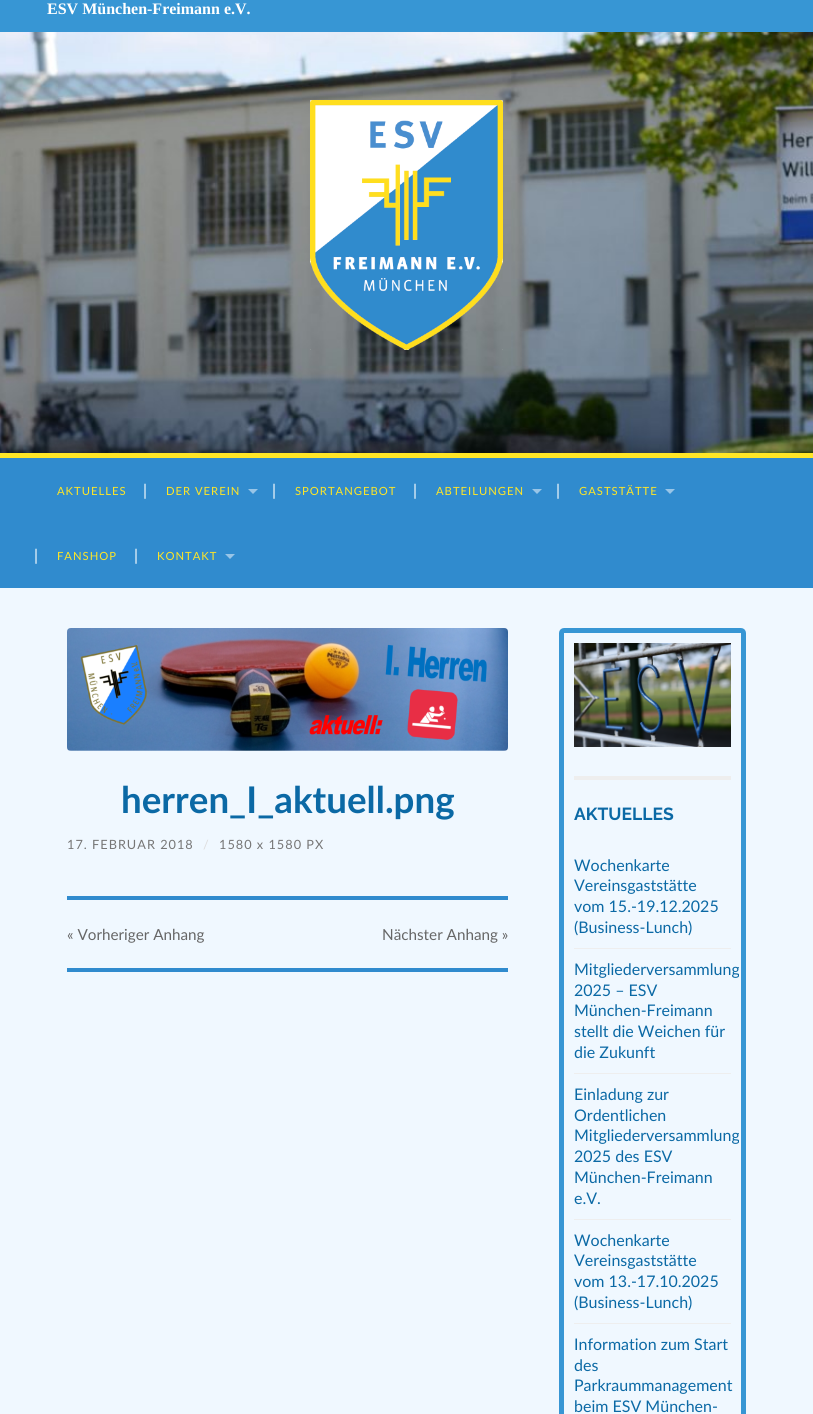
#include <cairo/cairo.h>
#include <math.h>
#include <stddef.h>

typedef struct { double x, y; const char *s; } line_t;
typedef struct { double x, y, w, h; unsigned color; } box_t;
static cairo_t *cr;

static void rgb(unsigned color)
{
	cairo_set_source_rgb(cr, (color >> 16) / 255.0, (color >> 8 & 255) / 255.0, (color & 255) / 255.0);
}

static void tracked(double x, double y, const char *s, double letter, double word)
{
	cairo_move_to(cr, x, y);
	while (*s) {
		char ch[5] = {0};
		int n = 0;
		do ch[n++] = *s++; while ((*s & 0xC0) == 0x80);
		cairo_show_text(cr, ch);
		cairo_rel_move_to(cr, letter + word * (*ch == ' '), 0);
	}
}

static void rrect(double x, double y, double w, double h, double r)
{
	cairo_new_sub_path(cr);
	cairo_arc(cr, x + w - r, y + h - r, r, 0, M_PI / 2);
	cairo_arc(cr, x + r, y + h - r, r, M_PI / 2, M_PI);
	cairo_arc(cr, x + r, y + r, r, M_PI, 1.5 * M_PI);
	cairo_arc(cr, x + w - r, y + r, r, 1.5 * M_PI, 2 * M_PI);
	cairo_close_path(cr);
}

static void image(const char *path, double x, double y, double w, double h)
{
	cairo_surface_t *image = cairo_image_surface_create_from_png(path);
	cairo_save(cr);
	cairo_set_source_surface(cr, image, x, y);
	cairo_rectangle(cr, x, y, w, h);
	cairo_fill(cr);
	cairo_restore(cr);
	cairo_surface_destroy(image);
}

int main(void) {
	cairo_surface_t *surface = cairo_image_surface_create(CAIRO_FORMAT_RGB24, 813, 1414);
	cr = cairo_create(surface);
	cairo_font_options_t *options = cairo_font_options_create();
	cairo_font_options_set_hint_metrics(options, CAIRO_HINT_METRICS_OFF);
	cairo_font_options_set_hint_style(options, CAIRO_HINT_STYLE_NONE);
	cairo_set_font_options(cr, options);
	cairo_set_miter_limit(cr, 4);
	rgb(0xf0f8ff);
	cairo_paint(cr);
	rgb(0x3796d4);
	cairo_rectangle(cr, 0, 0, 813, 32);
	cairo_fill(cr);
	image("img/1.png", 0, 32, 813, 421);
	image("img/2.png", 310, 100, 193, 250);
	rgb(0x308bce);
	cairo_rectangle(cr, 0, 458, 813, 130);
	cairo_fill(cr);
	rgb(0xffe626);
	cairo_rectangle(cr, 0, 453, 813, 5);
	cairo_fill(cr);
	rgb(0x98c5e7);
	cairo_new_path(cr);
	cairo_move_to(cr, 248, 489);
	cairo_line_to(cr, 258, 489);
	cairo_line_to(cr, 253, 494);
	cairo_close_path(cr);
	cairo_fill(cr);
	cairo_new_path(cr);
	cairo_move_to(cr, 532, 489);
	cairo_line_to(cr, 542, 489);
	cairo_line_to(cr, 537, 494);
	cairo_close_path(cr);
	cairo_fill(cr);
	cairo_new_path(cr);
	cairo_move_to(cr, 665, 489);
	cairo_line_to(cr, 675, 489);
	cairo_line_to(cr, 670, 494);
	cairo_close_path(cr);
	cairo_fill(cr);
	cairo_new_path(cr);
	cairo_move_to(cr, 225, 554);
	cairo_line_to(cr, 235, 554);
	cairo_line_to(cr, 230, 559);
	cairo_close_path(cr);
	cairo_fill(cr);
	image("img/3.png", 67, 628, 441, 123);
	rgb(0x308bce);
	cairo_rectangle(cr, 67, 896, 441, 4);
	cairo_fill(cr);
	cairo_rectangle(cr, 67, 968, 441, 4);
	cairo_fill(cr);
	rrect(561.5, 630.5, 182, 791, 2.5);
	rgb(0x3796d4);
	cairo_set_line_width(cr, 5);
	cairo_stroke(cr);
	rgb(0xeeeeee);
	cairo_rectangle(cr, 574, 776, 157, 4);
	cairo_fill(cr);
	image("img/4.png", 574, 643, 157, 104);
	{
		static const box_t items[] = {
			{574, 948, 157, 1, 0xeeeeee},
			{574, 1073, 157, 1, 0xeeeeee},
			{574, 1219, 157, 1, 0xeeeeee},
			{574, 1323, 157, 1, 0xeeeeee},
		};
		for (size_t i = 0; i < sizeof items / sizeof *items; i++) {
			rgb(items[i].color);
			cairo_rectangle(cr, items[i].x, items[i].y, items[i].w, items[i].h);
			cairo_fill(cr);
		}
	}
	cairo_select_font_face(cr, "Liberation Serif", CAIRO_FONT_SLANT_NORMAL, CAIRO_FONT_WEIGHT_BOLD);
	cairo_set_font_size(cr, 16);
	rgb(0xffffff);
	cairo_move_to(cr, 47, 14);
	cairo_show_text(cr, "ESV München-Freimann e.V.");
	cairo_select_font_face(cr, "Lato", CAIRO_FONT_SLANT_NORMAL, CAIRO_FONT_WEIGHT_NORMAL);
	cairo_set_font_size(cr, 11.25);
	rgb(0xffe626);
	tracked(57, 495, "AKTUELLES", 1, 0);
	cairo_set_font_size(cr, 16);
	rgb(0xffffff);
	cairo_move_to(cr, 143, 496);
	cairo_show_text(cr, "|");
	cairo_set_font_size(cr, 11.25);
	rgb(0xffe626);
	tracked(166, 495, "DER VEREIN", 1, 0);
	cairo_set_font_size(cr, 16);
	rgb(0xffffff);
	cairo_move_to(cr, 272, 496);
	cairo_show_text(cr, "|");
	cairo_set_font_size(cr, 11.25);
	rgb(0xffe626);
	tracked(295, 495, "SPORTANGEBOT", 1, 0);
	cairo_set_font_size(cr, 16);
	rgb(0xffffff);
	cairo_move_to(cr, 413, 496);
	cairo_show_text(cr, "|");
	cairo_set_font_size(cr, 11.25);
	rgb(0xffe626);
	tracked(436, 495, "ABTEILUNGEN", 1, 0);
	cairo_set_font_size(cr, 16);
	rgb(0xffffff);
	cairo_move_to(cr, 556, 496);
	cairo_show_text(cr, "|");
	cairo_set_font_size(cr, 11.25);
	rgb(0xffe626);
	tracked(579, 495, "GASTSTÄTTE", 1, 0);
	cairo_set_font_size(cr, 16);
	rgb(0xffffff);
	cairo_move_to(cr, 34, 561);
	cairo_show_text(cr, "|");
	cairo_set_font_size(cr, 11.25);
	rgb(0xffe626);
	tracked(57, 560, "FANSHOP", 1, 0);
	cairo_set_font_size(cr, 16);
	rgb(0xffffff);
	cairo_move_to(cr, 134, 561);
	cairo_show_text(cr, "|");
	cairo_set_font_size(cr, 11.25);
	rgb(0xffe626);
	tracked(157, 560, "KONTAKT", 1, 0);
	cairo_select_font_face(cr, "Lato", CAIRO_FONT_SLANT_NORMAL, CAIRO_FONT_WEIGHT_BOLD);
	cairo_set_font_size(cr, 36.75);
	rgb(0x0b69a5);
	cairo_move_to(cr, 121, 813);
	cairo_show_text(cr, "herren_I_aktuell.png");
	cairo_select_font_face(cr, "Lato", CAIRO_FONT_SLANT_NORMAL, CAIRO_FONT_WEIGHT_NORMAL);
	cairo_set_font_size(cr, 12.75);
	rgb(0x767676);
	tracked(67, 849, "17. FEBRUAR 2018", 1, 0);
	rgb(0xdddddd);
	tracked(203, 849, "/", 1, 0);
	rgb(0x767676);
	tracked(219, 849, "1580 x 1580 PX", 1, 0);
	cairo_set_font_size(cr, 15.25);
	rgb(0x666666);
	cairo_move_to(cr, 67, 940);
	cairo_show_text(cr, "« Vorheriger Anhang");
	cairo_move_to(cr, 382, 940);
	cairo_show_text(cr, "Nächster Anhang »");
	cairo_select_font_face(cr, "Raleway", CAIRO_FONT_SLANT_NORMAL, CAIRO_FONT_WEIGHT_BOLD);
	cairo_set_font_size(cr, 17.5);
	rgb(0x0b69a5);
	cairo_move_to(cr, 574, 820);
	cairo_show_text(cr, "AKTUELLES");
	cairo_select_font_face(cr, "Lato", CAIRO_FONT_SLANT_NORMAL, CAIRO_FONT_WEIGHT_NORMAL);
	cairo_set_font_size(cr, 16);
	{
		static const line_t items[] = {
			{574, 871, "Wochenkarte"},
			{574, 891, "Vereinsgaststätte"},
			{574, 912, "vom 15.-19.12.2025"},
			{574, 933, "(Business-Lunch)"},
			{574, 975, "Mitgliederversammlung"},
			{574, 996, "2025 – ESV"},
			{574, 1016, "München-Freimann"},
			{574, 1037, "stellt die Weichen für"},
			{574, 1058, "die Zukunft"},
			{574, 1100, "Einladung zur"},
			{574, 1121, "Ordentlichen"},
			{574, 1141, "Mitgliederversammlung"},
			{574, 1162, "2025 des ESV"},
			{574, 1183, "München-Freimann"},
			{574, 1204, "e.V."},
			{574, 1246, "Wochenkarte"},
			{574, 1266, "Vereinsgaststätte"},
			{574, 1287, "vom 13.-17.10.2025"},
			{574, 1308, "(Business-Lunch)"},
			{574, 1350, "Information zum Start"},
			{574, 1371, "des"},
			{574, 1391, "Parkraummanagement"},
			{574, 1412, "beim ESV München-"},
		};
		for (size_t i = 0; i < sizeof items / sizeof *items; i++) {
			cairo_move_to(cr, items[i].x, items[i].y);
			cairo_show_text(cr, items[i].s);
		}
	}
	cairo_surface_write_to_png(surface, "page.png");
	cairo_font_options_destroy(options);
	cairo_destroy(cr);
	cairo_surface_destroy(surface);
	return 0;
}
